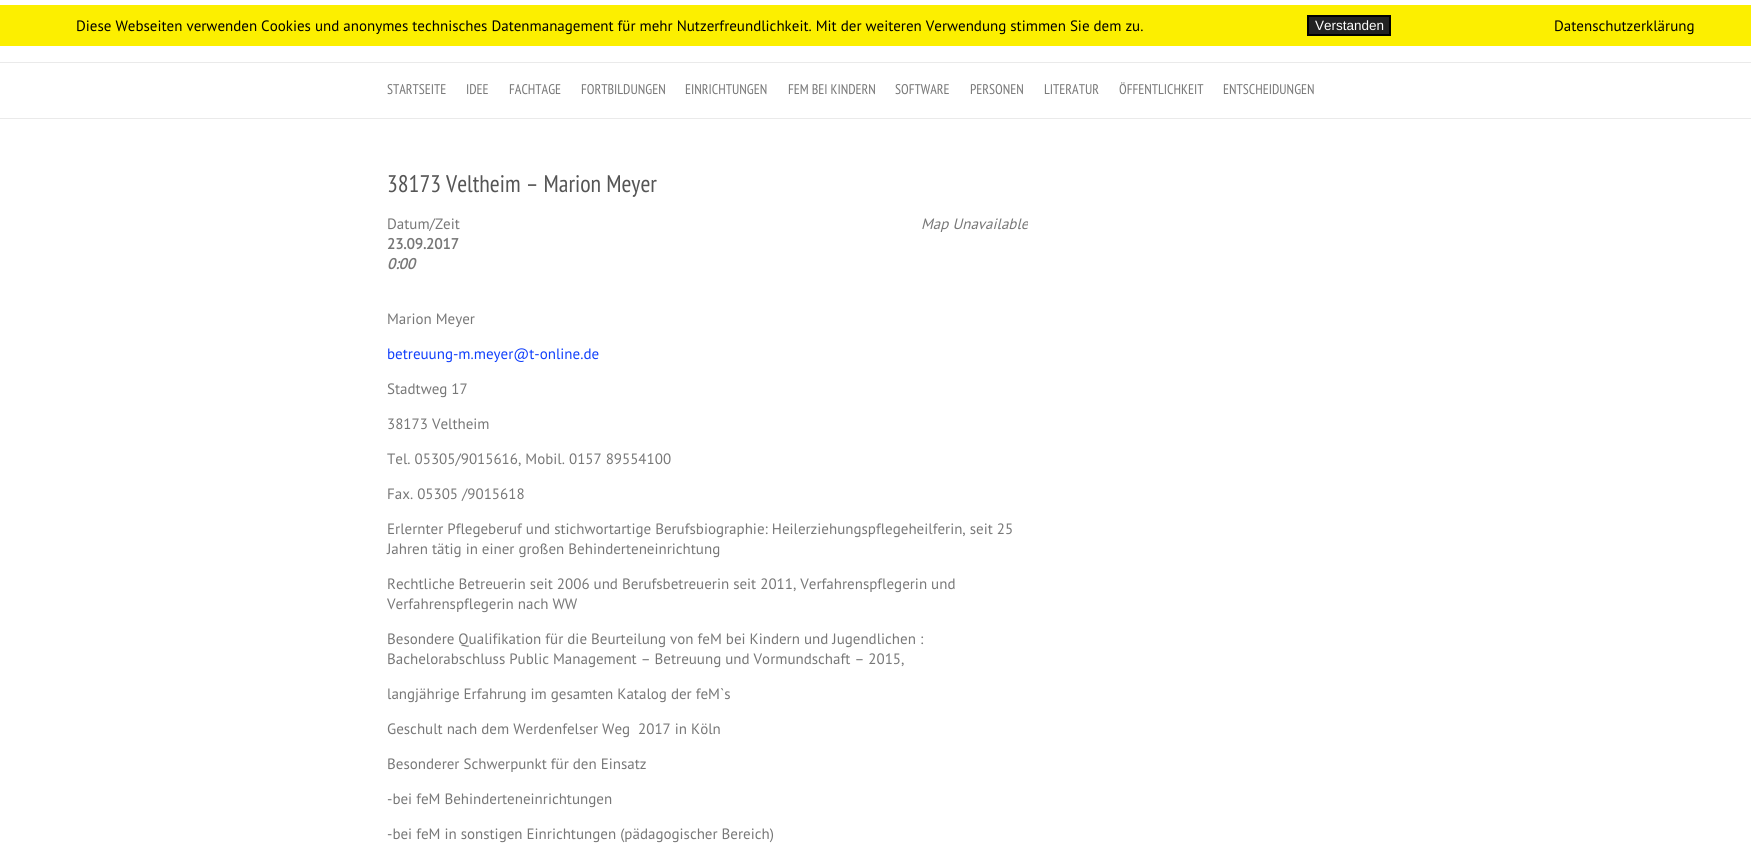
#include <cairo/cairo.h>
#include <math.h>
#include <stddef.h>

typedef struct { double x, y; const char *s; } line_t;
static cairo_t *cr;

static void rgb(unsigned color)
{
	cairo_set_source_rgb(cr, (color >> 16) / 255.0, (color >> 8 & 255) / 255.0, (color & 255) / 255.0);
}

int main(void) {
	cairo_surface_t *surface = cairo_image_surface_create(CAIRO_FORMAT_RGB24, 1751, 856);
	cr = cairo_create(surface);
	cairo_font_options_t *options = cairo_font_options_create();
	cairo_font_options_set_hint_metrics(options, CAIRO_HINT_METRICS_OFF);
	cairo_font_options_set_hint_style(options, CAIRO_HINT_STYLE_NONE);
	cairo_set_font_options(cr, options);
	cairo_set_miter_limit(cr, 4);
	rgb(0xffffff);
	cairo_paint(cr);
	rgb(0xfcef00);
	cairo_rectangle(cr, 0, 5, 1751, 41);
	cairo_fill(cr);
	rgb(0x222222);
	cairo_rectangle(cr, 1308, 16, 82, 19);
	cairo_fill_preserve(cr);
	rgb(0x000000);
	cairo_stroke(cr);
	rgb(0xeaeaea);
	cairo_rectangle(cr, 0, 62, 1751, 1);
	cairo_fill(cr);
	cairo_rectangle(cr, 0, 118, 1751, 1);
	cairo_fill(cr);
	cairo_select_font_face(cr, "PT Sans", CAIRO_FONT_SLANT_NORMAL, CAIRO_FONT_WEIGHT_NORMAL);
	cairo_set_font_size(cr, 15);
	rgb(0x000000);
	cairo_move_to(cr, 76, 31);
	cairo_show_text(cr, "Diese Webseiten verwenden Cookies und anonymes technisches Datenmanagement für mehr Nutzerfreundlichkeit. Mit der weiteren Verwendung stimmen Sie dem zu.");
	cairo_select_font_face(cr, "Liberation Sans", CAIRO_FONT_SLANT_NORMAL, CAIRO_FONT_WEIGHT_NORMAL);
	cairo_set_font_size(cr, 13.5);
	rgb(0xffffff);
	cairo_move_to(cr, 1315, 30);
	cairo_show_text(cr, "Verstanden");
	cairo_select_font_face(cr, "PT Sans", CAIRO_FONT_SLANT_NORMAL, CAIRO_FONT_WEIGHT_NORMAL);
	cairo_set_font_size(cr, 15);
	rgb(0x000000);
	cairo_move_to(cr, 1554, 31);
	cairo_show_text(cr, "Datenschutzerklärung");
	cairo_select_font_face(cr, "PT Sans Narrow", CAIRO_FONT_SLANT_NORMAL, CAIRO_FONT_WEIGHT_NORMAL);
	cairo_set_font_size(cr, 14);
	rgb(0x777777);
	{
		static const line_t items[] = {
			{387, 94, "STARTSEITE"},
			{466, 94, "IDEE"},
			{509, 94, "FACHTAGE"},
			{581, 94, "FORTBILDUNGEN"},
			{685, 94, "EINRICHTUNGEN"},
			{788, 94, "FEM BEI KINDERN"},
			{895, 94, "SOFTWARE"},
			{970, 94, "PERSONEN"},
			{1044, 94, "LITERATUR"},
			{1119, 94, "ÖFFENTLICHKEIT"},
			{1223, 94, "ENTSCHEIDUNGEN"},
		};
		for (size_t i = 0; i < sizeof items / sizeof *items; i++) {
			cairo_move_to(cr, items[i].x, items[i].y);
			cairo_show_text(cr, items[i].s);
		}
	}
	cairo_set_font_size(cr, 24);
	rgb(0x555555);
	cairo_move_to(cr, 387, 192);
	cairo_show_text(cr, "38173 Veltheim – Marion Meyer");
	cairo_select_font_face(cr, "PT Sans", CAIRO_FONT_SLANT_NORMAL, CAIRO_FONT_WEIGHT_NORMAL);
	cairo_set_font_size(cr, 15);
	rgb(0x777777);
	cairo_move_to(cr, 387, 229);
	cairo_show_text(cr, "Datum/Zeit");
	cairo_select_font_face(cr, "PT Sans", CAIRO_FONT_SLANT_NORMAL, CAIRO_FONT_WEIGHT_BOLD);
	cairo_move_to(cr, 387, 249);
	cairo_show_text(cr, "23.09.2017");
	cairo_select_font_face(cr, "PT Sans", CAIRO_FONT_SLANT_ITALIC, CAIRO_FONT_WEIGHT_BOLD);
	cairo_move_to(cr, 387, 269);
	cairo_show_text(cr, "0:00");
	cairo_save(cr);
	cairo_rectangle(cr, 387, 214, 641, 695);
	cairo_clip(cr);
	cairo_select_font_face(cr, "PT Sans", CAIRO_FONT_SLANT_ITALIC, CAIRO_FONT_WEIGHT_NORMAL);
	cairo_move_to(cr, 921, 229);
	cairo_show_text(cr, "Map Unavailable");
	cairo_restore(cr);
	cairo_select_font_face(cr, "PT Sans", CAIRO_FONT_SLANT_NORMAL, CAIRO_FONT_WEIGHT_NORMAL);
	cairo_move_to(cr, 387, 324);
	cairo_show_text(cr, "Marion Meyer");
	rgb(0x103ffb);
	cairo_move_to(cr, 387, 359);
	cairo_show_text(cr, "betreuung-m.meyer@t-online.de");
	rgb(0x777777);
	{
		static const line_t items[] = {
			{387, 394, "Stadtweg 17"},
			{387, 429, "38173 Veltheim"},
			{387, 464, "Tel. 05305/9015616, Mobil. 0157 89554100"},
			{387, 499, "Fax. 05305 /9015618"},
			{387, 534, "Erlernter Pflegeberuf und stichwortartige Berufsbiographie: Heilerziehungspflegeheilferin, seit 25"},
			{387, 554, "Jahren tätig in einer großen Behinderteneinrichtung"},
			{387, 589, "Rechtliche Betreuerin seit 2006 und Berufsbetreuerin seit 2011, Verfahrenspflegerin und"},
			{387, 609, "Verfahrenspflegerin nach WW"},
			{387, 644, "Besondere Qualifikation für die Beurteilung von feM bei Kindern und Jugendlichen :"},
			{387, 664, "Bachelorabschluss Public Management – Betreuung und Vormundschaft – 2015,"},
			{387, 699, "langjährige Erfahrung im gesamten Katalog der feM`s"},
			{387, 734, "Geschult nach dem Werdenfelser Weg  2017 in Köln"},
			{387, 769, "Besonderer Schwerpunkt für den Einsatz"},
			{387, 804, "-bei feM Behinderteneinrichtungen"},
			{387, 839, "-bei feM in sonstigen Einrichtungen (pädagogischer Bereich)"},
		};
		for (size_t i = 0; i < sizeof items / sizeof *items; i++) {
			cairo_move_to(cr, items[i].x, items[i].y);
			cairo_show_text(cr, items[i].s);
		}
	}
	cairo_surface_write_to_png(surface, "page.png");
	cairo_font_options_destroy(options);
	cairo_destroy(cr);
	cairo_surface_destroy(surface);
	return 0;
}
